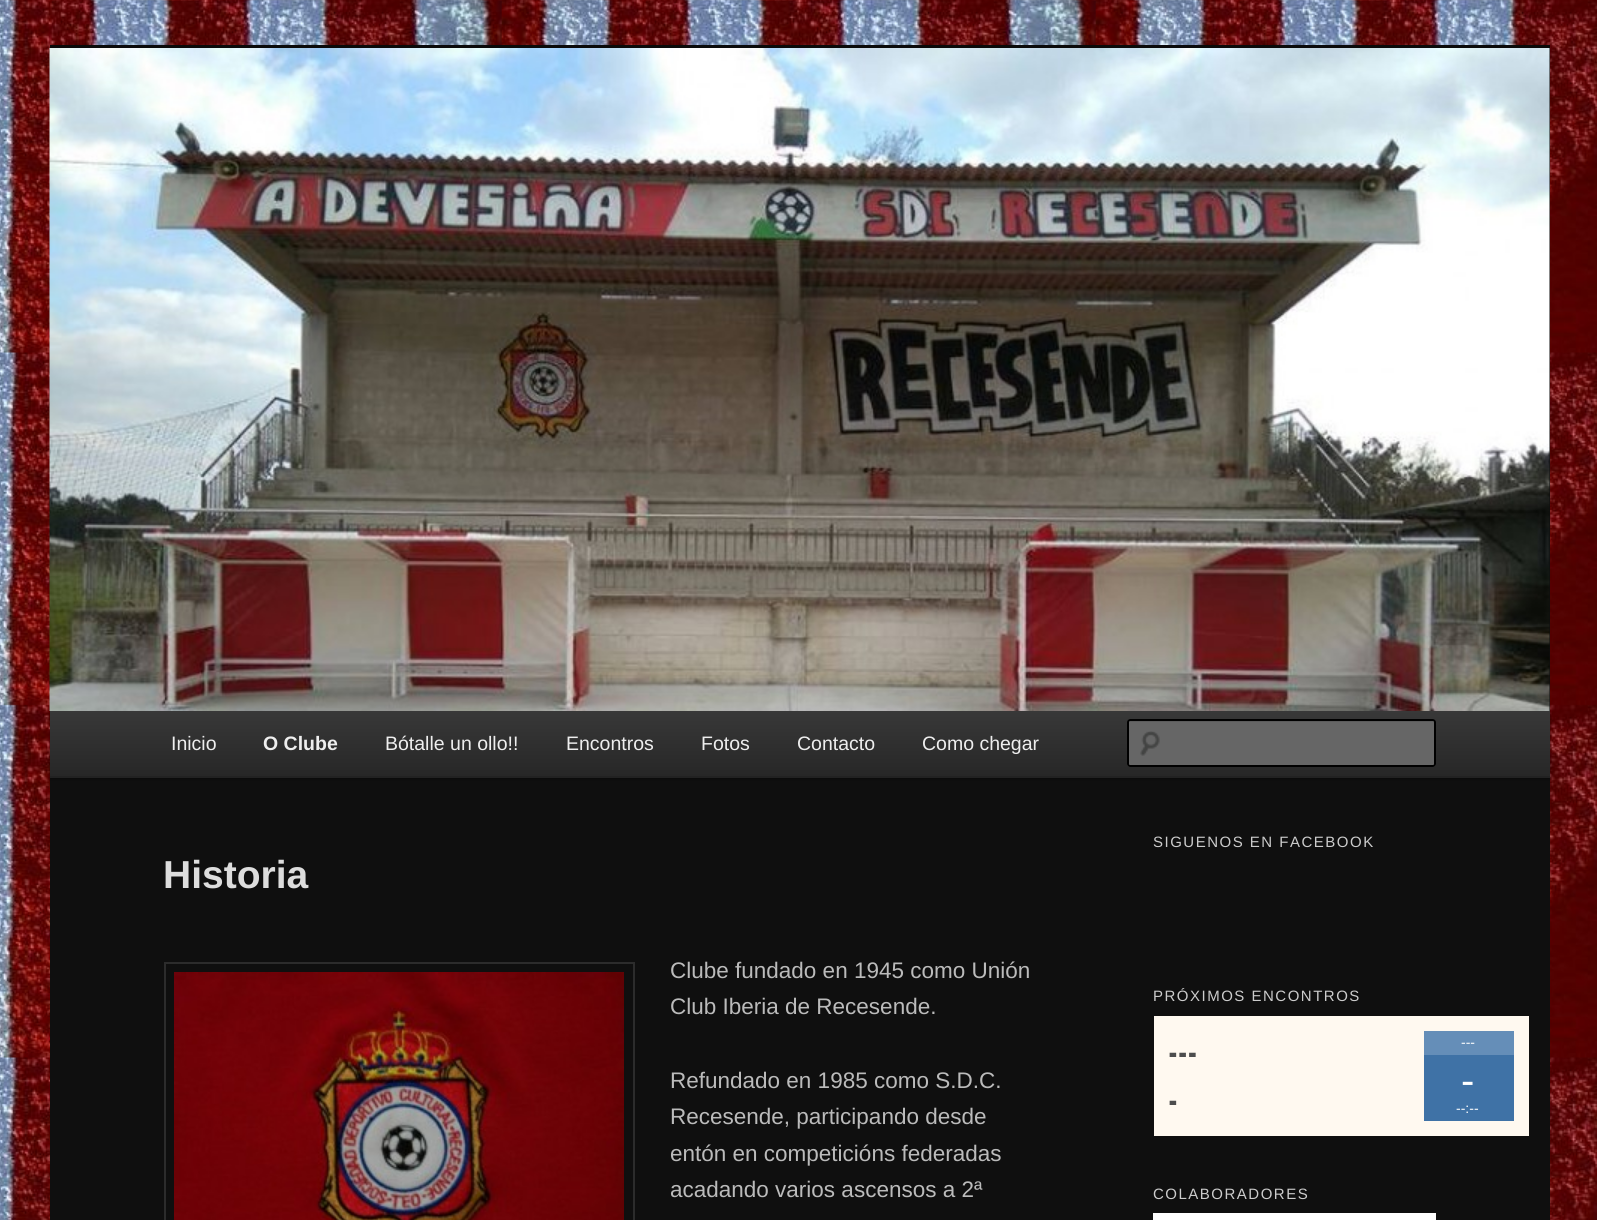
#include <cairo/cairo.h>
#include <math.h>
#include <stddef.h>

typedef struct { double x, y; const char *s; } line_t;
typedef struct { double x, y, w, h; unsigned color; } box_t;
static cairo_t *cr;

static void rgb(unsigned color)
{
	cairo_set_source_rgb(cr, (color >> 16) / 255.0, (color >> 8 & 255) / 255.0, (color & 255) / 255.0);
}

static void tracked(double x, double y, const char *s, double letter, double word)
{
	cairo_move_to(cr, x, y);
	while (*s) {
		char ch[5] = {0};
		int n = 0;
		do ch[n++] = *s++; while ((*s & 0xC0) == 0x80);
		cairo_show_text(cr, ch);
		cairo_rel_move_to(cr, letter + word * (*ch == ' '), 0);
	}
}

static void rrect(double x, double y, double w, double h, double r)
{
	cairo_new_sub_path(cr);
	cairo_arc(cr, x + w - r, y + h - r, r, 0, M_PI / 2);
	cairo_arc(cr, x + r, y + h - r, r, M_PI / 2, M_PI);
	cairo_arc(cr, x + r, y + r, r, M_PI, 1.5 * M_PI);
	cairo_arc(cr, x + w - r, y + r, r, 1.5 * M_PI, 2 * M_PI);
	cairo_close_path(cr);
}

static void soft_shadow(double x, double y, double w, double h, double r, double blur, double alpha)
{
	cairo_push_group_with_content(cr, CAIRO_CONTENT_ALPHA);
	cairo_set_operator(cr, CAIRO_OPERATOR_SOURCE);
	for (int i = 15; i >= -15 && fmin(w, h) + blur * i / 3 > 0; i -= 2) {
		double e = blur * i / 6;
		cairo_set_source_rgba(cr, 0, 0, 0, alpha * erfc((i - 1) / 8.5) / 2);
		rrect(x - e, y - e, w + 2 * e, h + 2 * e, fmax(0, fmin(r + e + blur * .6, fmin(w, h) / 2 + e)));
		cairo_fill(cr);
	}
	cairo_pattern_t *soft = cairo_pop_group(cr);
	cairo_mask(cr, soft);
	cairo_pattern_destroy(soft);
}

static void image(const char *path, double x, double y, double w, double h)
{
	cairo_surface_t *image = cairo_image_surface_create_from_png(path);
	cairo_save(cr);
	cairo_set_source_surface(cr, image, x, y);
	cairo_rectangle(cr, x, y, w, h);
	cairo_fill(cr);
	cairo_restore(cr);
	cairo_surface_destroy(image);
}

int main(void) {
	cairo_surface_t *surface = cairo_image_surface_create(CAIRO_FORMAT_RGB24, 1597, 1220);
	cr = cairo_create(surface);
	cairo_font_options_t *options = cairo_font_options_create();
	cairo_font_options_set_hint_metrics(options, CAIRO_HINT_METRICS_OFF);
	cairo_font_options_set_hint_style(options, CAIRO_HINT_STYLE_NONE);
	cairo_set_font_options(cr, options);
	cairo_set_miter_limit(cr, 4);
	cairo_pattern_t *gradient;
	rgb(0xffffff);
	cairo_paint(cr);
	image("img/1.png", 0, 0, 1597, 1220);
	rgb(0x0f0f0f);
	cairo_rectangle(cr, 50, 48, 1500, 1172);
	cairo_fill(cr);
	rgb(0x0a0a0a);
	cairo_rectangle(cr, 50, 45, 1500, 3);
	cairo_fill(cr);
	rgb(0x000000);
	soft_shadow(50, 713, 1500, 66, 0, 1.5, 0.4);
	image("img/2.png", 49, 48, 1501, 663);
	gradient = cairo_pattern_create_linear(800, 711, 800, 776);
	cairo_pattern_add_color_stop_rgba(gradient, 0, 0.22, 0.22, 0.22, 1);
	cairo_pattern_add_color_stop_rgba(gradient, 1, 0.153, 0.153, 0.153, 1);
	cairo_set_source(cr, gradient);
	cairo_pattern_destroy(gradient);
	cairo_rectangle(cr, 50, 711, 1500, 65);
	cairo_fill(cr);
	rgb(0x222222);
	cairo_rectangle(cr, 50, 776, 1500, 2);
	cairo_fill(cr);
	rgb(0x666666);
	rrect(1127, 719, 309, 48, 3);
	cairo_fill(cr);
	image("img/3.png", 1140, 731, 20, 25);
	rgb(0x5c5c5c);
	cairo_new_path(cr);
	cairo_move_to(cr, 1130, 722);
	cairo_line_to(cr, 1432, 722);
	cairo_curve_to(cr, 1433, 722, 1434, 722, 1434, 723);
	cairo_line_to(cr, 1434, 721);
	cairo_line_to(cr, 1432, 720);
	cairo_line_to(cr, 1130, 720);
	cairo_curve_to(cr, 1128, 720, 1128, 722, 1128, 723);
	cairo_curve_to(cr, 1128, 722, 1129, 722, 1130, 722);
	cairo_close_path(cr);
	cairo_fill(cr);
	rrect(1128, 720, 307, 46, 2);
	rgb(0x000000);
	cairo_stroke(cr);
	cairo_rectangle(cr, 165, 963, 469, 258);
	rgb(0x2c2c2c);
	cairo_stroke(cr);
	image("img/4.png", 174, 972, 450, 248);
	{
		static const box_t items[] = {
			{1154, 1016, 375, 120, 0xfff9f0},
			{1424, 1055, 90, 66, 0x3f72a6},
			{1424, 1031, 90, 24, 0x658eb8},
			{1153, 1213, 283, 7, 0xffffff},
		};
		for (size_t i = 0; i < sizeof items / sizeof *items; i++) {
			rgb(items[i].color);
			cairo_rectangle(cr, items[i].x, items[i].y, items[i].w, items[i].h);
			cairo_fill(cr);
		}
	}
	cairo_select_font_face(cr, "Liberation Sans", CAIRO_FONT_SLANT_NORMAL, CAIRO_FONT_WEIGHT_NORMAL);
	cairo_set_font_size(cr, 19.5);
	rgb(0xeeeeee);
	cairo_move_to(cr, 171, 750);
	cairo_show_text(cr, "Inicio");
	cairo_select_font_face(cr, "Liberation Sans", CAIRO_FONT_SLANT_NORMAL, CAIRO_FONT_WEIGHT_BOLD);
	cairo_move_to(cr, 263, 750);
	cairo_show_text(cr, "O Clube");
	cairo_select_font_face(cr, "Liberation Sans", CAIRO_FONT_SLANT_NORMAL, CAIRO_FONT_WEIGHT_NORMAL);
	{
		static const line_t items[] = {
			{385, 750, "Bótalle un ollo!!"},
			{566, 750, "Encontros"},
			{701, 750, "Fotos"},
			{797, 750, "Contacto"},
			{922, 750, "Como chegar"},
		};
		for (size_t i = 0; i < sizeof items / sizeof *items; i++) {
			cairo_move_to(cr, items[i].x, items[i].y);
			cairo_show_text(cr, items[i].s);
		}
	}
	cairo_select_font_face(cr, "Liberation Sans", CAIRO_FONT_SLANT_NORMAL, CAIRO_FONT_WEIGHT_BOLD);
	cairo_set_font_size(cr, 39);
	rgb(0xdddddd);
	cairo_move_to(cr, 163, 888);
	cairo_show_text(cr, "Historia");
	cairo_select_font_face(cr, "Liberation Sans", CAIRO_FONT_SLANT_NORMAL, CAIRO_FONT_WEIGHT_NORMAL);
	cairo_set_font_size(cr, 22.5);
	rgb(0xbbbbbb);
	{
		static const line_t items[] = {
			{670, 978, "Clube fundado en 1945 como Unión"},
			{670, 1014, "Club Iberia de Recesende."},
			{670, 1088, "Refundado en 1985 como S.D.C."},
			{670, 1124, "Recesende, participando desde"},
			{670, 1161, "entón en competicións federadas"},
			{670, 1197, "acadando varios ascensos a 2ª"},
		};
		for (size_t i = 0; i < sizeof items / sizeof *items; i++) {
			cairo_move_to(cr, items[i].x, items[i].y);
			cairo_show_text(cr, items[i].s);
		}
	}
	cairo_set_font_size(cr, 15);
	rgb(0xcccccc);
	tracked(1153, 847, "SIGUENOS EN FACEBOOK", 1.5, 0);
	tracked(1153, 1001, "PRÓXIMOS ENCONTROS", 1.5, 0);
	cairo_select_font_face(cr, "League Gothic", CAIRO_FONT_SLANT_NORMAL, CAIRO_FONT_WEIGHT_NORMAL);
	cairo_set_font_size(cr, 45);
	rgb(0x4d4d4d);
	cairo_move_to(cr, 1168, 1067);
	cairo_show_text(cr, "---");
	cairo_move_to(cr, 1168, 1115);
	cairo_show_text(cr, "-");
	cairo_select_font_face(cr, "Liberation Sans", CAIRO_FONT_SLANT_NORMAL, CAIRO_FONT_WEIGHT_NORMAL);
	cairo_set_font_size(cr, 14);
	rgb(0xffffff);
	cairo_move_to(cr, 1461, 1047);
	cairo_show_text(cr, "---");
	cairo_set_font_size(cr, 40);
	cairo_move_to(cr, 1461, 1094);
	cairo_show_text(cr, "-");
	cairo_set_font_size(cr, 14);
	cairo_move_to(cr, 1456, 1113);
	cairo_show_text(cr, "--:--");
	cairo_set_font_size(cr, 15);
	rgb(0xcccccc);
	tracked(1153, 1199, "COLABORADORES", 1.5, 0);
	cairo_surface_write_to_png(surface, "page.png");
	cairo_font_options_destroy(options);
	cairo_destroy(cr);
	cairo_surface_destroy(surface);
	return 0;
}
